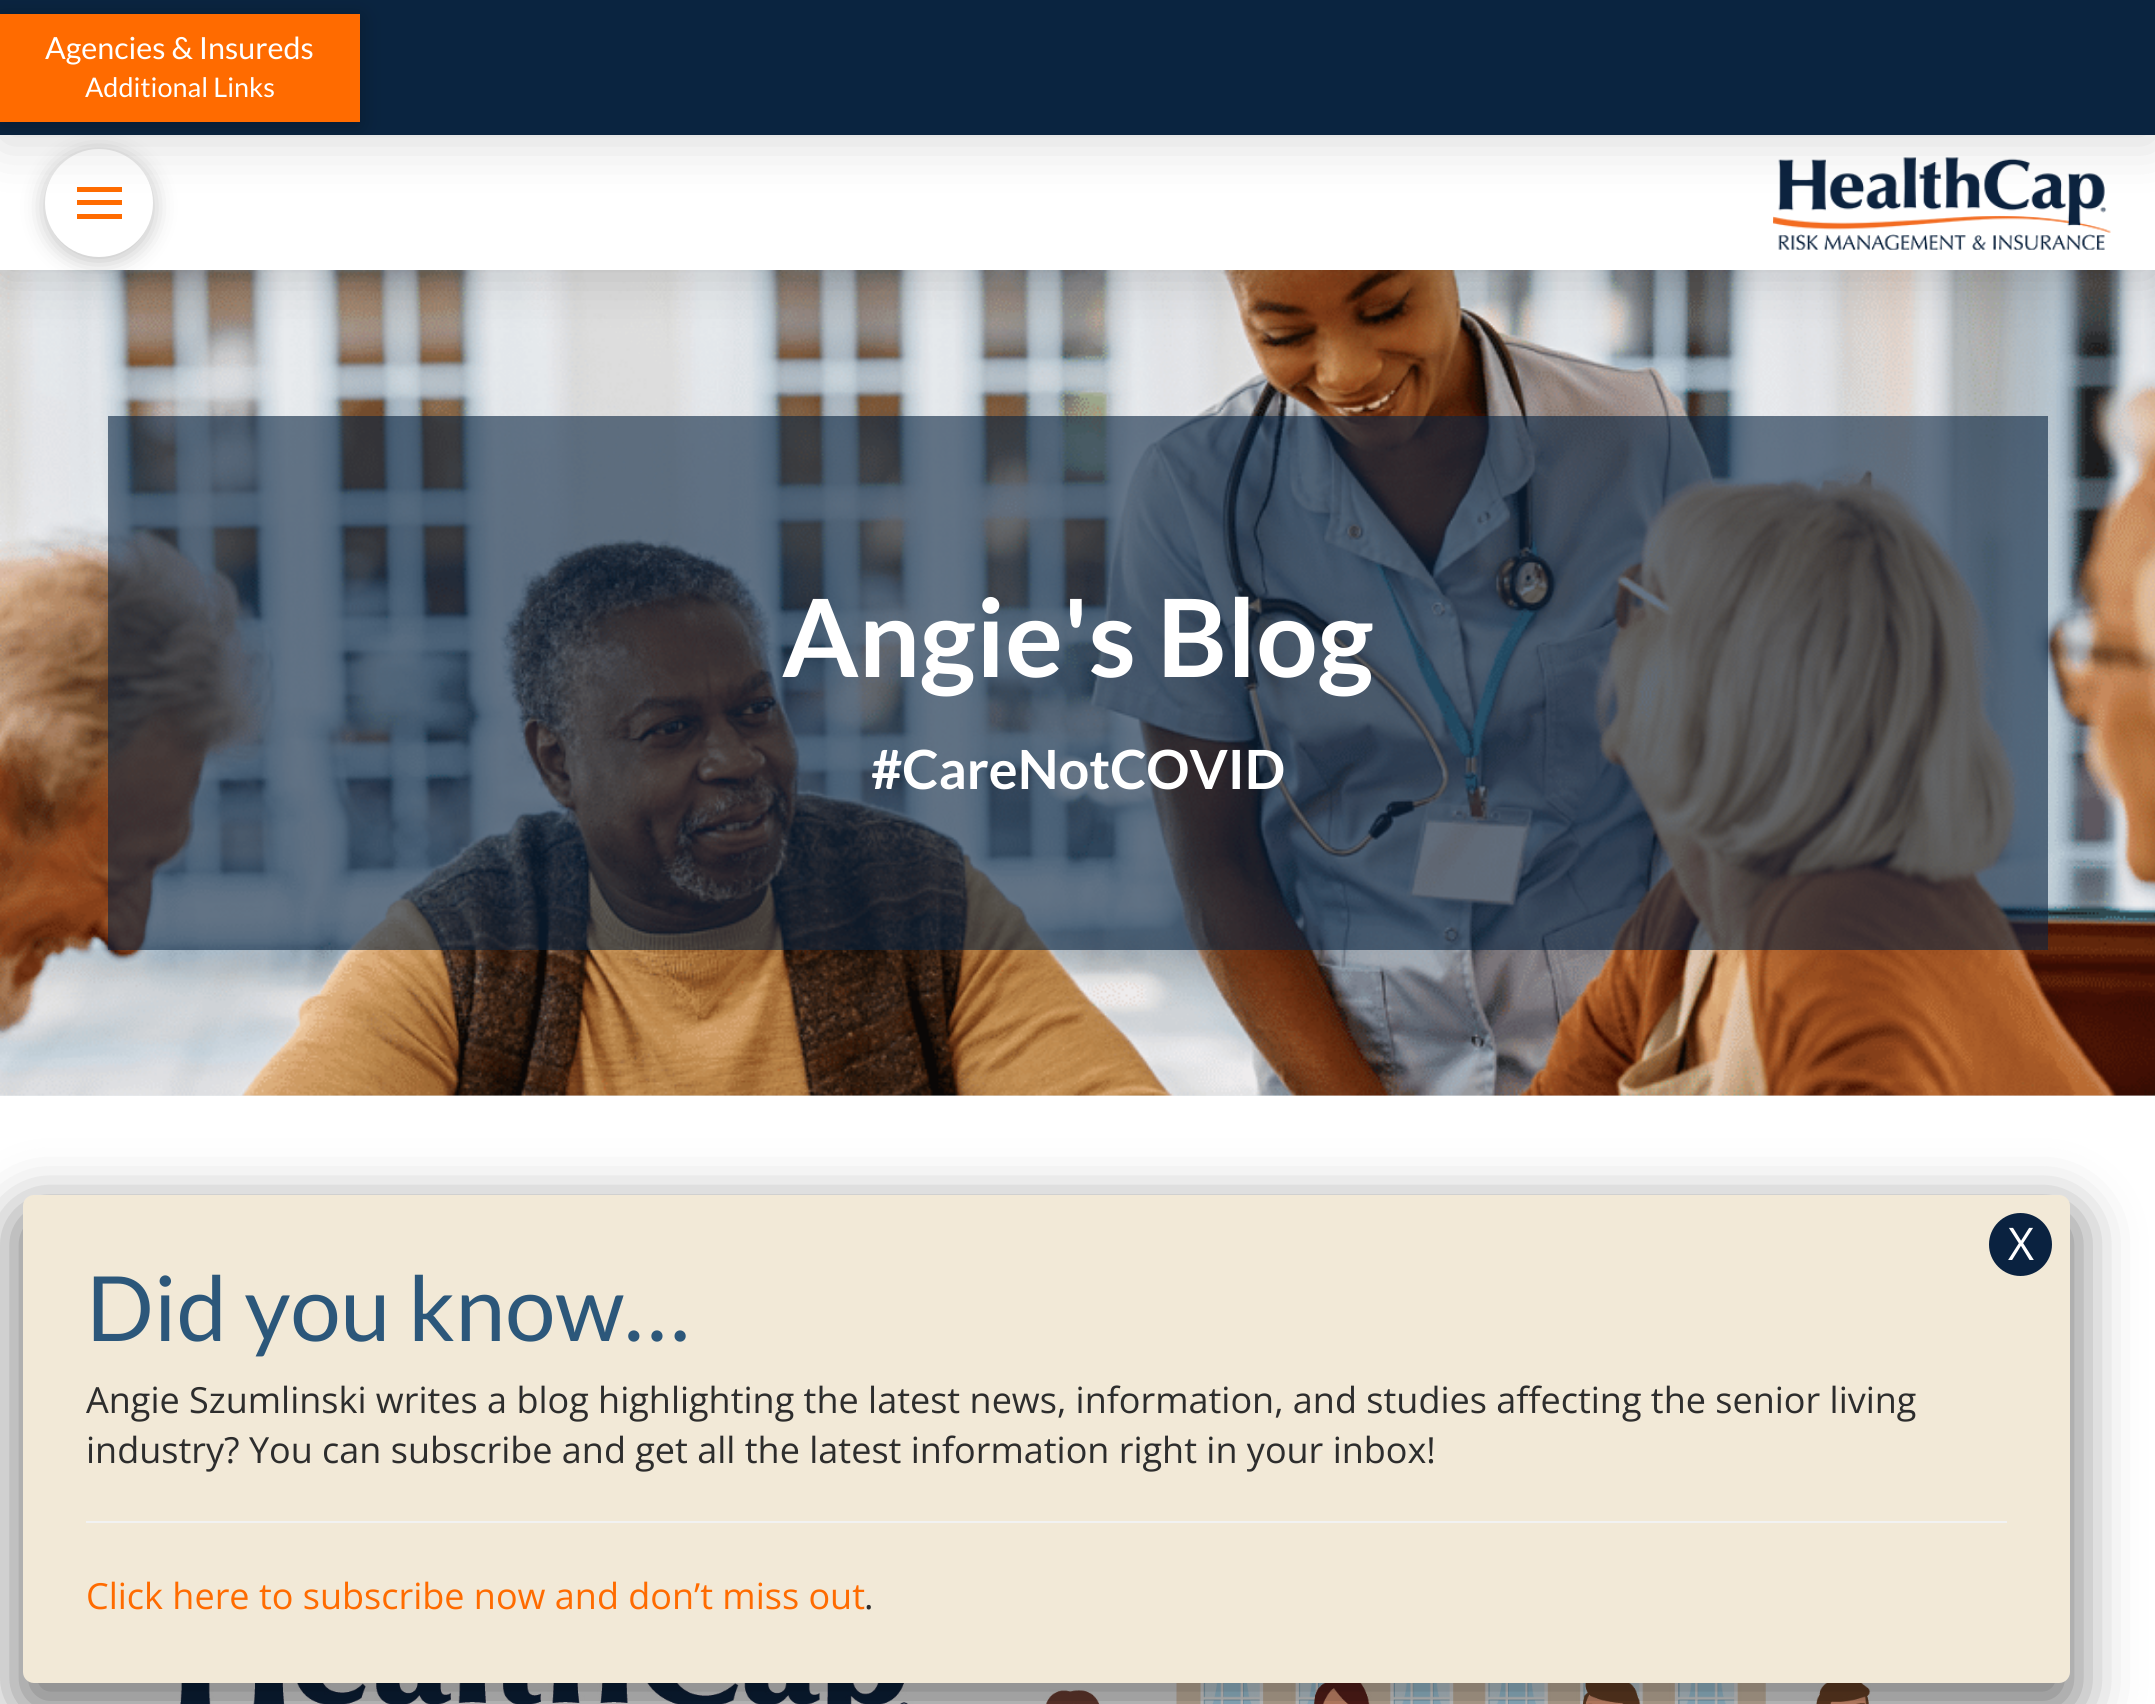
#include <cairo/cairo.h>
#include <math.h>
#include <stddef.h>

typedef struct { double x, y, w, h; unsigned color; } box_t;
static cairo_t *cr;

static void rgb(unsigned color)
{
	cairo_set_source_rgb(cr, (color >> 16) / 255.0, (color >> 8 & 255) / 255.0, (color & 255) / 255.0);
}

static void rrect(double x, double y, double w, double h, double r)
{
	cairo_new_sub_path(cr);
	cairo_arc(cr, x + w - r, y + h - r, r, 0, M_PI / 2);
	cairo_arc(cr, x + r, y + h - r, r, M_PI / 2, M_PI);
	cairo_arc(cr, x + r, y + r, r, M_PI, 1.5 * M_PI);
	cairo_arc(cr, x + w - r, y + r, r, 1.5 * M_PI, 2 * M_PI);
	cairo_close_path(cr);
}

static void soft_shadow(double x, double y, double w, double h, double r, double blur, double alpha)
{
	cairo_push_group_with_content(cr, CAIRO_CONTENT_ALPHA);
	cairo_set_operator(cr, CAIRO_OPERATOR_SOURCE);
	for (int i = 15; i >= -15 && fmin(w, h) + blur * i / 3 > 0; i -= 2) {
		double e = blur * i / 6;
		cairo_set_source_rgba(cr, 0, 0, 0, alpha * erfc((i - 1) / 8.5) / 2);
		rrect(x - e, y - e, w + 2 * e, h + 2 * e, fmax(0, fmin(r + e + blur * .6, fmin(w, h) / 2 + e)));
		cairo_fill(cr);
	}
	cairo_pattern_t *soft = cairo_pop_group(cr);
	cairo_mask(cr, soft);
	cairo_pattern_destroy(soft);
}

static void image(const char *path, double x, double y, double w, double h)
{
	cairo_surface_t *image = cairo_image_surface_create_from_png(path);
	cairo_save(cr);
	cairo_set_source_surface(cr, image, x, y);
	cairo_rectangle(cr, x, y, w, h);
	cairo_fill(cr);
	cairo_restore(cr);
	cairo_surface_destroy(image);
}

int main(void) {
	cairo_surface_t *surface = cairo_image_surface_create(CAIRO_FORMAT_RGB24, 2155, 1704);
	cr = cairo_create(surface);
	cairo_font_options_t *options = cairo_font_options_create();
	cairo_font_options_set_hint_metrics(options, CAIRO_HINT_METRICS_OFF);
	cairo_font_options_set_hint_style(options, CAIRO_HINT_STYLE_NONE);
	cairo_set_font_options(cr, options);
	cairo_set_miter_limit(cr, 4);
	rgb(0xeaeff2);
	cairo_paint(cr);
	image("img/2.png", 0, 270, 2155, 826);
	rgb(0x000000);
	soft_shadow(0, 142, 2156, 135, 0, 28, 0.15);
	rgb(0xffffff);
	cairo_rectangle(cr, 0, 135, 2155, 135);
	cairo_fill(cr);
	rgb(0x000000);
	soft_shadow(45, 153, 108, 108, 54, 11.5, 0.25);
	rgb(0xffffff);
	cairo_arc(cr, 99, 203, 54, 0, 2 * M_PI);
	cairo_fill(cr);
	{
		static const box_t items[] = {
			{77, 187, 45, 5, 0xff6b00},
			{77, 200, 45, 5, 0xff6b00},
			{77, 214, 45, 5, 0xff6b00},
		};
		for (size_t i = 0; i < sizeof items / sizeof *items; i++) {
			rgb(items[i].color);
			cairo_rectangle(cr, items[i].x, items[i].y, items[i].w, items[i].h);
			cairo_fill(cr);
		}
	}
	image("img/1.png", 1773, 157, 338, 93);
	rgb(0x000000);
	soft_shadow(0, 7, 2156, 135, 0, 28, 0.15);
	rgb(0x0a2440);
	cairo_rectangle(cr, 0, 0, 2155, 135);
	cairo_fill(cr);
	cairo_save(cr);
	cairo_rectangle(cr, 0, 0, 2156, 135);
	cairo_clip(cr);
	rgb(0x000000);
	soft_shadow(0, 18, 360, 108, 0, 11.5, 0.25);
	cairo_restore(cr);
	rgb(0xff6b00);
	cairo_rectangle(cr, 0, 14, 360, 108);
	cairo_fill(cr);
	cairo_set_source_rgba(cr, 0.039, 0.141, 0.251, 0.6);
	cairo_rectangle(cr, 108, 416, 1940, 534);
	cairo_fill(cr);
	rgb(0xffffff);
	cairo_rectangle(cr, 0, 1096, 2155, 608);
	cairo_fill(cr);
	image("img/3.png", 180, 1683, 1691, 21);
	rgb(0x020202);
	soft_shadow(14, 1208, 2065, 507, 20, 28, 0.5);
	rgb(0xf2e9d7);
	rrect(23, 1195, 2047, 488, 11);
	cairo_fill(cr);
	rgb(0x0a2240);
	cairo_arc(cr, 2020.5, 1244.5, 31.5, 0, 2 * M_PI);
	cairo_fill(cr);
	rgb(0xf2f2f2);
	cairo_rectangle(cr, 86, 1521, 1921, 2);
	cairo_fill(cr);
	cairo_select_font_face(cr, "Lato", CAIRO_FONT_SLANT_NORMAL, CAIRO_FONT_WEIGHT_NORMAL);
	cairo_set_font_size(cr, 30.5);
	rgb(0xffffff);
	cairo_move_to(cr, 45, 59);
	cairo_show_text(cr, "Agencies & Insureds");
	cairo_set_font_size(cr, 27);
	cairo_move_to(cr, 85, 97);
	cairo_show_text(cr, "Additional Links");
	cairo_select_font_face(cr, "Lato", CAIRO_FONT_SLANT_NORMAL, CAIRO_FONT_WEIGHT_BOLD);
	cairo_set_font_size(cr, 108);
	cairo_move_to(cr, 782, 677);
	cairo_show_text(cr, "Angie's Blog");
	cairo_set_font_size(cr, 54);
	cairo_move_to(cr, 871, 789);
	cairo_show_text(cr, "#CareNotCOVID");
	cairo_select_font_face(cr, "Open Sans", CAIRO_FONT_SLANT_NORMAL, CAIRO_FONT_WEIGHT_NORMAL);
	cairo_set_font_size(cr, 45);
	cairo_move_to(cr, 2008, 1260);
	cairo_show_text(cr, "X");
	cairo_select_font_face(cr, "Lato", CAIRO_FONT_SLANT_NORMAL, CAIRO_FONT_WEIGHT_NORMAL);
	cairo_set_font_size(cr, 90);
	rgb(0x2c577a);
	cairo_move_to(cr, 86, 1341);
	cairo_show_text(cr, "Did you know…");
	cairo_select_font_face(cr, "Open Sans", CAIRO_FONT_SLANT_NORMAL, CAIRO_FONT_WEIGHT_NORMAL);
	cairo_set_font_size(cr, 36);
	rgb(0x2d2d2d);
	cairo_move_to(cr, 86, 1413);
	cairo_show_text(cr, "Angie Szumlinski writes a blog highlighting the latest news, information, and studies affecting the senior living");
	cairo_move_to(cr, 86, 1463);
	cairo_show_text(cr, "industry? You can subscribe and get all the latest information right in your inbox!");
	rgb(0xff6b00);
	cairo_move_to(cr, 86, 1609);
	cairo_show_text(cr, "Click here to subscribe now and don’t miss out");
	rgb(0x2d2d2d);
	cairo_move_to(cr, 864, 1609);
	cairo_show_text(cr, ".");
	cairo_surface_write_to_png(surface, "page.png");
	cairo_font_options_destroy(options);
	cairo_destroy(cr);
	cairo_surface_destroy(surface);
	return 0;
}
